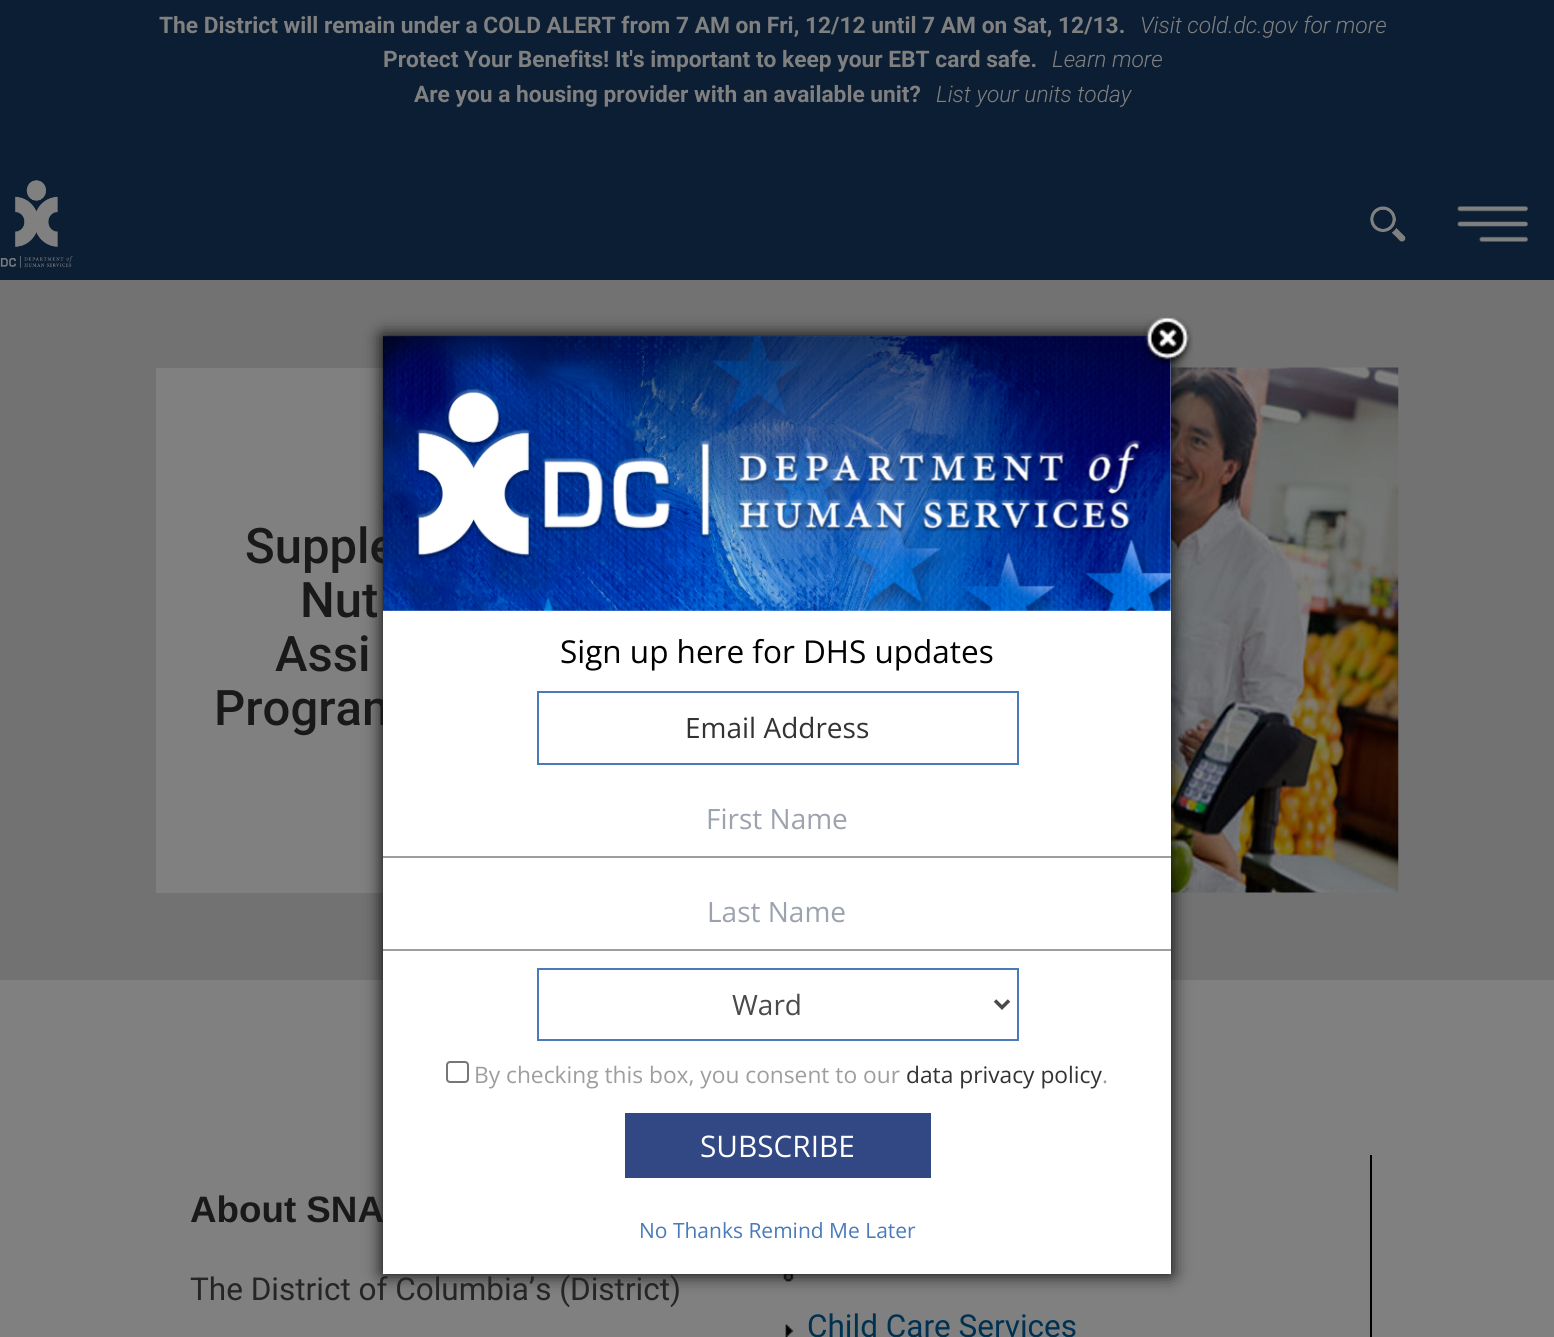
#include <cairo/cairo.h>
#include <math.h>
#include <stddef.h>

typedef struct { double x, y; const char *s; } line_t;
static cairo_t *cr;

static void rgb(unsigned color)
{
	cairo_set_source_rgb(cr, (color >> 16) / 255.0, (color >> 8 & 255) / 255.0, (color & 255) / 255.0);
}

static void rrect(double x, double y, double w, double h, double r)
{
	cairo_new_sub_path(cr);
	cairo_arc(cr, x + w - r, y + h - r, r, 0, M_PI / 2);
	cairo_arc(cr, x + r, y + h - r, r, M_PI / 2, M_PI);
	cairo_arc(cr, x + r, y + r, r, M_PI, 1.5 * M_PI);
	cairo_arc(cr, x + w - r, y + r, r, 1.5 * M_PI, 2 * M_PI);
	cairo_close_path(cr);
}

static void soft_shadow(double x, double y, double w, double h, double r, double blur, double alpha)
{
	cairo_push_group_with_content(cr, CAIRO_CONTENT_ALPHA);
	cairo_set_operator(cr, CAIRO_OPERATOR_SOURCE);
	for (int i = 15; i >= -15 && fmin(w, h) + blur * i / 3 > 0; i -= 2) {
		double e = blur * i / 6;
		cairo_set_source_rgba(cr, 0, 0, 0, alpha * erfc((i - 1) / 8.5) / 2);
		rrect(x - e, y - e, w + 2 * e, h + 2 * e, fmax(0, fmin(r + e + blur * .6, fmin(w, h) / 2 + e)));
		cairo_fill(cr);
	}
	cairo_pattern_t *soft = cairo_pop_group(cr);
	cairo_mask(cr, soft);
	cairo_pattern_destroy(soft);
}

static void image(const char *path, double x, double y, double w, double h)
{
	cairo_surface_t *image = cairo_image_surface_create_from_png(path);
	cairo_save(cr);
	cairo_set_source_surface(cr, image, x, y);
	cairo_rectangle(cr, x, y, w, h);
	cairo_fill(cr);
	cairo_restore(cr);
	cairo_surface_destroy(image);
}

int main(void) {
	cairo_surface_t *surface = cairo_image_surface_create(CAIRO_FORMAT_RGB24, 1554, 1337);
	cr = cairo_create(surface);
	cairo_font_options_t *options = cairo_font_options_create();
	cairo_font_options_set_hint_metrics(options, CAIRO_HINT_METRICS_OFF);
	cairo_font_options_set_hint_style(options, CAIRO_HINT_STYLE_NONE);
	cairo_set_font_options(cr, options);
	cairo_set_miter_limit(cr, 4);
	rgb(0x808080);
	cairo_paint(cr);
	rgb(0x0c1e33);
	cairo_rectangle(cr, 0, 0, 1554, 280);
	cairo_fill(cr);
	image("img/1.png", 0, 180, 73, 88);
	image("img/2.png", 1370, 206, 36, 36);
	image("img/3.png", 1457, 206, 71, 36);
	rgb(0x727272);
	cairo_rectangle(cr, 0, 280, 1554, 700);
	cairo_fill(cr);
	rgb(0x808080);
	cairo_rectangle(cr, 156, 368, 227, 525);
	cairo_fill(cr);
	image("img/4.png", 1171, 367, 228, 526);
	rgb(0x000000);
	cairo_rectangle(cr, 1370, 1155, 2, 182);
	cairo_fill(cr);
	image("img/5.png", 783, 1274, 11, 8);
	image("img/6.png", 785, 1324, 9, 13);
	rgb(0x000000);
	soft_shadow(383, 336, 788, 938, 0, 9, 1);
	cairo_select_font_face(cr, "Roboto", CAIRO_FONT_SLANT_NORMAL, CAIRO_FONT_WEIGHT_BOLD);
	cairo_set_font_size(cr, 22.75);
	rgb(0x808080);
	cairo_move_to(cr, 159, 33);
	cairo_show_text(cr, "The District will remain under a COLD ALERT from 7 AM on Fri, 12/12 until 7 AM on Sat, 12/13.");
	cairo_select_font_face(cr, "Roboto Light", CAIRO_FONT_SLANT_ITALIC, CAIRO_FONT_WEIGHT_NORMAL);
	cairo_move_to(cr, 1140, 33);
	cairo_show_text(cr, "Visit cold.dc.gov for more");
	cairo_select_font_face(cr, "Roboto", CAIRO_FONT_SLANT_NORMAL, CAIRO_FONT_WEIGHT_BOLD);
	cairo_move_to(cr, 383, 67);
	cairo_show_text(cr, "Protect Your Benefits! It's important to keep your EBT card safe.");
	cairo_select_font_face(cr, "Roboto Light", CAIRO_FONT_SLANT_ITALIC, CAIRO_FONT_WEIGHT_NORMAL);
	cairo_move_to(cr, 1052, 67);
	cairo_show_text(cr, "Learn more");
	cairo_select_font_face(cr, "Roboto", CAIRO_FONT_SLANT_NORMAL, CAIRO_FONT_WEIGHT_BOLD);
	cairo_move_to(cr, 414, 102);
	cairo_show_text(cr, "Are you a housing provider with an available unit?");
	cairo_select_font_face(cr, "Roboto Light", CAIRO_FONT_SLANT_ITALIC, CAIRO_FONT_WEIGHT_NORMAL);
	cairo_move_to(cr, 936, 102);
	cairo_show_text(cr, "List your units today");
	cairo_select_font_face(cr, "Roboto Medium", CAIRO_FONT_SLANT_NORMAL, CAIRO_FONT_WEIGHT_NORMAL);
	cairo_set_font_size(cr, 49);
	rgb(0x191919);
	{
		static const line_t items[] = {
			{245, 563, "Supple"},
			{300, 617, "Nut"},
			{275, 671, "Assi"},
			{214, 725, "Program"},
		};
		for (size_t i = 0; i < sizeof items / sizeof *items; i++) {
			cairo_move_to(cr, items[i].x, items[i].y);
			cairo_show_text(cr, items[i].s);
		}
	}
	cairo_select_font_face(cr, "Liberation Sans", CAIRO_FONT_SLANT_NORMAL, CAIRO_FONT_WEIGHT_BOLD);
	cairo_set_font_size(cr, 36.75);
	cairo_move_to(cr, 190, 1222);
	cairo_show_text(cr, "About SNA");
	cairo_select_font_face(cr, "Roboto", CAIRO_FONT_SLANT_NORMAL, CAIRO_FONT_WEIGHT_NORMAL);
	cairo_set_font_size(cr, 31.5);
	rgb(0x252525);
	cairo_move_to(cr, 190, 1300);
	cairo_show_text(cr, "The District of Columbia’s (District)");
	rgb(0x003150);
	cairo_move_to(cr, 807, 1337);
	cairo_show_text(cr, "Child Care Services");
	rgb(0xffffff);
	cairo_rectangle(cr, 383, 337, 788, 937);
	cairo_fill(cr);
	image("img/8.png", 383, 336, 788, 275);
	image("img/7.png", 1143, 316, 50, 49);
	cairo_select_font_face(cr, "Open Sans", CAIRO_FONT_SLANT_NORMAL, CAIRO_FONT_WEIGHT_NORMAL);
	rgb(0x000000);
	cairo_move_to(cr, 560, 663);
	cairo_show_text(cr, "Sign up here for DHS updates");
	cairo_rectangle(cr, 538, 692, 480, 72);
	rgb(0x497bba);
	cairo_stroke(cr);
	cairo_set_font_size(cr, 28);
	rgb(0x333333);
	cairo_move_to(cr, 685, 738);
	cairo_show_text(cr, "Email Address");
	rgb(0x9e9e9e);
	cairo_rectangle(cr, 383, 856, 788, 2);
	cairo_fill(cr);
	rgb(0x9ca3af);
	cairo_move_to(cr, 706, 829);
	cairo_show_text(cr, "First Name");
	rgb(0x9e9e9e);
	cairo_rectangle(cr, 383, 949, 788, 2);
	cairo_fill(cr);
	rgb(0x9ca3af);
	cairo_move_to(cr, 707, 922);
	cairo_show_text(cr, "Last Name");
	cairo_rectangle(cr, 538, 969, 480, 71);
	rgb(0x497bba);
	cairo_stroke(cr);
	cairo_new_path(cr);
	cairo_move_to(cr, 995, 1000.5);
	cairo_line_to(cr, 1002, 1007.5);
	cairo_line_to(cr, 1009, 1000.5);
	rgb(0x4a4a4a);
	cairo_set_line_width(cr, 3.5);
	cairo_stroke(cr);
	cairo_move_to(cr, 732, 1015);
	cairo_show_text(cr, "Ward");
	rrect(447, 1062, 21, 20, 3);
	rgb(0x767676);
	cairo_set_line_width(cr, 2);
	cairo_stroke(cr);
	cairo_set_font_size(cr, 22.75);
	rgb(0x9e9e9e);
	cairo_move_to(cr, 474, 1083);
	cairo_show_text(cr, "By checking this box, you consent to our");
	rgb(0x333333);
	cairo_move_to(cr, 906, 1083);
	cairo_show_text(cr, "data privacy policy");
	rgb(0x9e9e9e);
	cairo_move_to(cr, 1102, 1083);
	cairo_show_text(cr, ".");
	rgb(0x324884);
	cairo_rectangle(cr, 625, 1113, 306, 65);
	cairo_fill(cr);
	cairo_set_font_size(cr, 29.75);
	rgb(0xffffff);
	cairo_move_to(cr, 700, 1157);
	cairo_show_text(cr, "SUBSCRIBE");
	cairo_set_font_size(cr, 21);
	rgb(0x497bba);
	cairo_move_to(cr, 639, 1238);
	cairo_show_text(cr, "No Thanks Remind Me Later");
	cairo_surface_write_to_png(surface, "page.png");
	cairo_font_options_destroy(options);
	cairo_destroy(cr);
	cairo_surface_destroy(surface);
	return 0;
}
